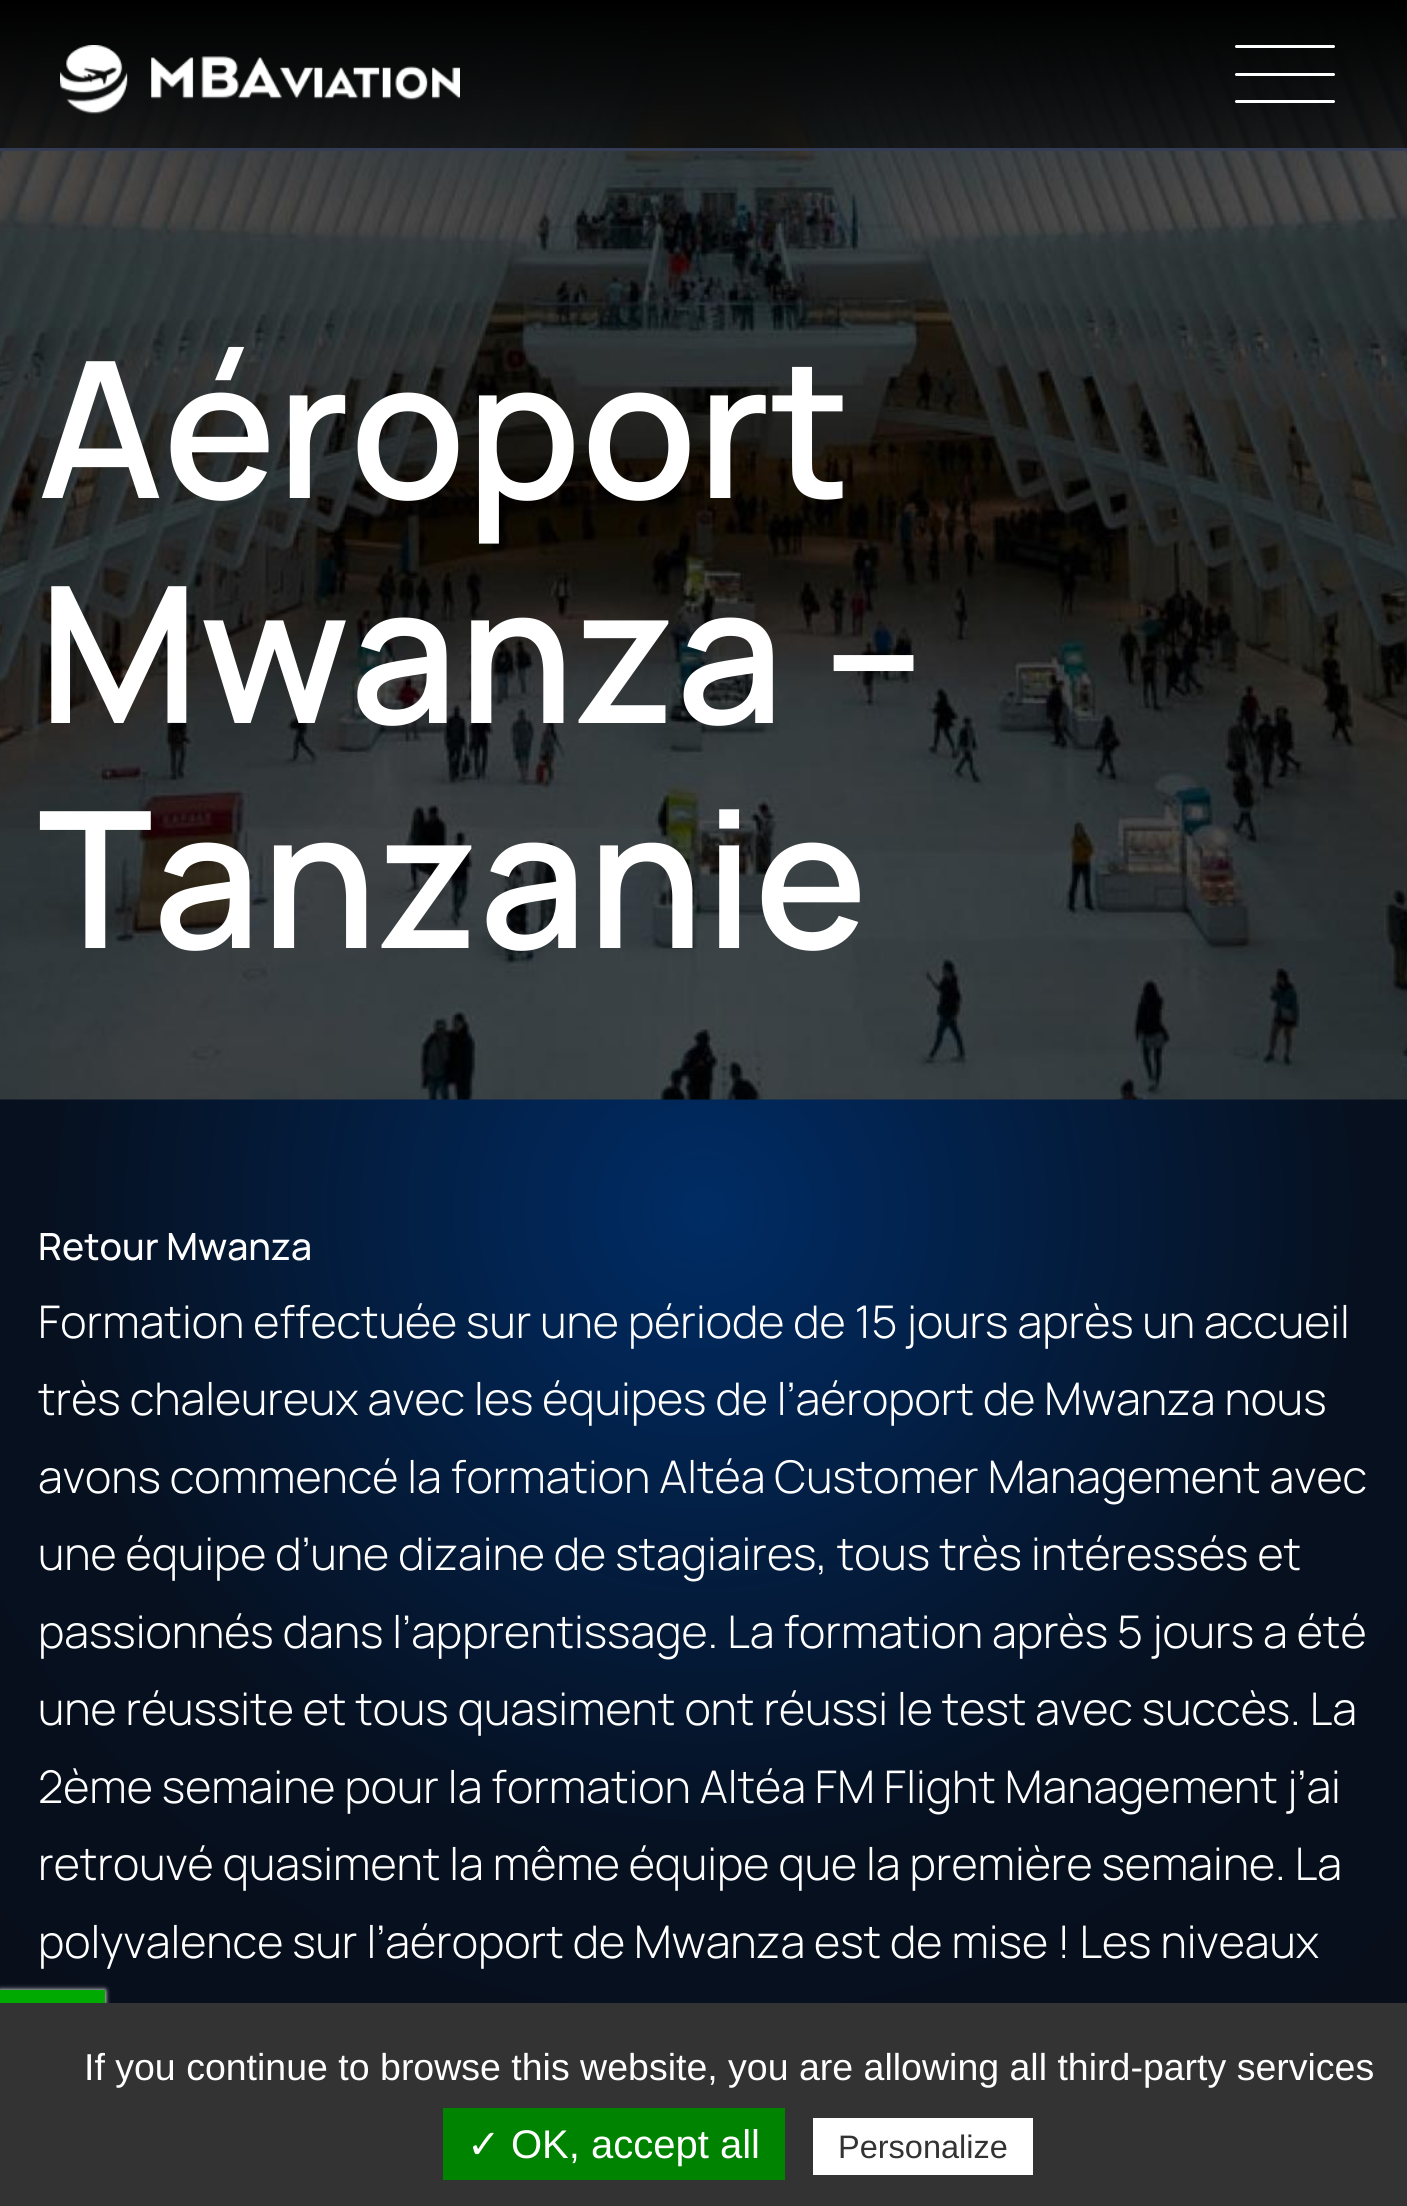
#include <cairo/cairo.h>
#include <math.h>
#include <stddef.h>

typedef struct { double x, y; const char *s; } line_t;
typedef struct { double x, y, w, h; unsigned color; } box_t;
static cairo_t *cr;

static void rgb(unsigned color)
{
	cairo_set_source_rgb(cr, (color >> 16) / 255.0, (color >> 8 & 255) / 255.0, (color & 255) / 255.0);
}

static void rrect(double x, double y, double w, double h, double r)
{
	cairo_new_sub_path(cr);
	cairo_arc(cr, x + w - r, y + h - r, r, 0, M_PI / 2);
	cairo_arc(cr, x + r, y + h - r, r, M_PI / 2, M_PI);
	cairo_arc(cr, x + r, y + r, r, M_PI, 1.5 * M_PI);
	cairo_arc(cr, x + w - r, y + r, r, 1.5 * M_PI, 2 * M_PI);
	cairo_close_path(cr);
}

static void soft_shadow(double x, double y, double w, double h, double r, double blur, double alpha)
{
	cairo_push_group_with_content(cr, CAIRO_CONTENT_ALPHA);
	cairo_set_operator(cr, CAIRO_OPERATOR_SOURCE);
	for (int i = 15; i >= -15 && fmin(w, h) + blur * i / 3 > 0; i -= 2) {
		double e = blur * i / 6;
		cairo_set_source_rgba(cr, 0, 0, 0, alpha * erfc((i - 1) / 8.5) / 2);
		rrect(x - e, y - e, w + 2 * e, h + 2 * e, fmax(0, fmin(r + e + blur * .6, fmin(w, h) / 2 + e)));
		cairo_fill(cr);
	}
	cairo_pattern_t *soft = cairo_pop_group(cr);
	cairo_mask(cr, soft);
	cairo_pattern_destroy(soft);
}

static void image(const char *path, double x, double y, double w, double h)
{
	cairo_surface_t *image = cairo_image_surface_create_from_png(path);
	cairo_save(cr);
	cairo_set_source_surface(cr, image, x, y);
	cairo_rectangle(cr, x, y, w, h);
	cairo_fill(cr);
	cairo_restore(cr);
	cairo_surface_destroy(image);
}

int main(void) {
	cairo_surface_t *surface = cairo_image_surface_create(CAIRO_FORMAT_RGB24, 1407, 2206);
	cr = cairo_create(surface);
	cairo_font_options_t *options = cairo_font_options_create();
	cairo_font_options_set_hint_metrics(options, CAIRO_HINT_METRICS_OFF);
	cairo_font_options_set_hint_style(options, CAIRO_HINT_STYLE_NONE);
	cairo_set_font_options(cr, options);
	cairo_set_miter_limit(cr, 4);
	cairo_pattern_t *gradient;
	rgb(0xffffff);
	cairo_paint(cr);
	gradient = cairo_pattern_create_radial(704, 1211, 0, 704, 1211, 1692);
	cairo_pattern_add_color_stop_rgba(gradient, 0, 0, 0.173, 0.396, 1);
	cairo_pattern_add_color_stop_rgba(gradient, 0.39, 0.024, 0.063, 0.122, 1);
	cairo_pattern_add_color_stop_rgba(gradient, 1, 0.047, 0.047, 0.078, 1);
	cairo_set_source(cr, gradient);
	cairo_pattern_destroy(gradient);
	cairo_rectangle(cr, 0, 1099, 1407, 904);
	cairo_fill(cr);
	image("img/2.png", 0, 0, 1407, 1100);
	rgb(0x333b55);
	cairo_rectangle(cr, 0, 148, 1407, 3);
	cairo_fill(cr);
	image("img/1.png", 60, 45, 400, 69);
	rgb(0xffffff);
	rrect(1235, 45, 100, 3, 1.5);
	cairo_fill(cr);
	rrect(1235, 73, 100, 3, 1.5);
	cairo_fill(cr);
	rrect(1235, 100, 100, 3, 1.5);
	cairo_fill(cr);
	rgb(0x555555);
	soft_shadow(0, 1993, 105, 12, 0, 2.5, 1);
	rgb(0xffffff);
	soft_shadow(0, 1990, 105, 13, 0, 2.5, 1);
	{
		static const box_t items[] = {
			{0, 1990, 105, 13, 0x00aa00},
			{0, 2003, 1407, 203, 0x333333},
			{443, 2108, 342, 72, 0x008300},
			{813, 2118, 220, 57, 0xffffff},
		};
		for (size_t i = 0; i < sizeof items / sizeof *items; i++) {
			rgb(items[i].color);
			cairo_rectangle(cr, items[i].x, items[i].y, items[i].w, items[i].h);
			cairo_fill(cr);
		}
	}
	cairo_select_font_face(cr, "Manrope SemiBold", CAIRO_FONT_SLANT_NORMAL, CAIRO_FONT_WEIGHT_NORMAL);
	cairo_set_font_size(cr, 190);
	{
		static const line_t items[] = {
			{38, 498, "Aéroport"},
			{38, 723, "Mwanza –"},
			{38, 948, "Tanzanie"},
		};
		for (size_t i = 0; i < sizeof items / sizeof *items; i++) {
			cairo_move_to(cr, items[i].x, items[i].y);
			cairo_show_text(cr, items[i].s);
		}
	}
	cairo_select_font_face(cr, "Manrope Medium", CAIRO_FONT_SLANT_NORMAL, CAIRO_FONT_WEIGHT_NORMAL);
	cairo_set_font_size(cr, 37.5);
	cairo_move_to(cr, 38, 1260);
	cairo_show_text(cr, "Retour Mwanza");
	cairo_select_font_face(cr, "Manrope Light", CAIRO_FONT_SLANT_NORMAL, CAIRO_FONT_WEIGHT_NORMAL);
	cairo_set_font_size(cr, 45);
	{
		static const line_t items[] = {
			{38, 1338, "Formation effectuée sur une période de 15 jours après un accueil"},
			{38, 1415, "très chaleureux avec les équipes de l’aéroport de Mwanza nous"},
			{38, 1493, "avons commencé la formation Altéa Customer Management avec"},
			{38, 1570, "une équipe d’une dizaine de stagiaires, tous très intéressés et"},
			{38, 1648, "passionnés dans l’apprentissage. La formation après 5 jours a été"},
			{38, 1725, "une réussite et tous quasiment ont réussi le test avec succès. La"},
			{38, 1803, "2ème semaine pour la formation Altéa FM Flight Management j’ai"},
			{38, 1880, "retrouvé quasiment la même équipe que la première semaine. La"},
			{38, 1958, "polyvalence sur l’aéroport de Mwanza est de mise ! Les niveaux"},
		};
		for (size_t i = 0; i < sizeof items / sizeof *items; i++) {
			cairo_move_to(cr, items[i].x, items[i].y);
			cairo_show_text(cr, items[i].s);
		}
	}
	cairo_select_font_face(cr, "Liberation Sans", CAIRO_FONT_SLANT_NORMAL, CAIRO_FONT_WEIGHT_NORMAL);
	cairo_set_font_size(cr, 37.5);
	cairo_move_to(cr, 84, 2080);
	cairo_show_text(cr, "If you continue to browse this website, you are allowing all third-party services");
	cairo_select_font_face(cr, "DejaVu Sans", CAIRO_FONT_SLANT_NORMAL, CAIRO_FONT_WEIGHT_NORMAL);
	cairo_set_font_size(cr, 40);
	cairo_move_to(cr, 467, 2158);
	cairo_show_text(cr, "✓");
	cairo_select_font_face(cr, "Liberation Sans", CAIRO_FONT_SLANT_NORMAL, CAIRO_FONT_WEIGHT_NORMAL);
	cairo_move_to(cr, 511, 2158);
	cairo_show_text(cr, "OK, accept all");
	cairo_set_font_size(cr, 32.5);
	rgb(0x333333);
	cairo_move_to(cr, 838, 2158);
	cairo_show_text(cr, "Personalize");
	cairo_surface_write_to_png(surface, "page.png");
	cairo_font_options_destroy(options);
	cairo_destroy(cr);
	cairo_surface_destroy(surface);
	return 0;
}
